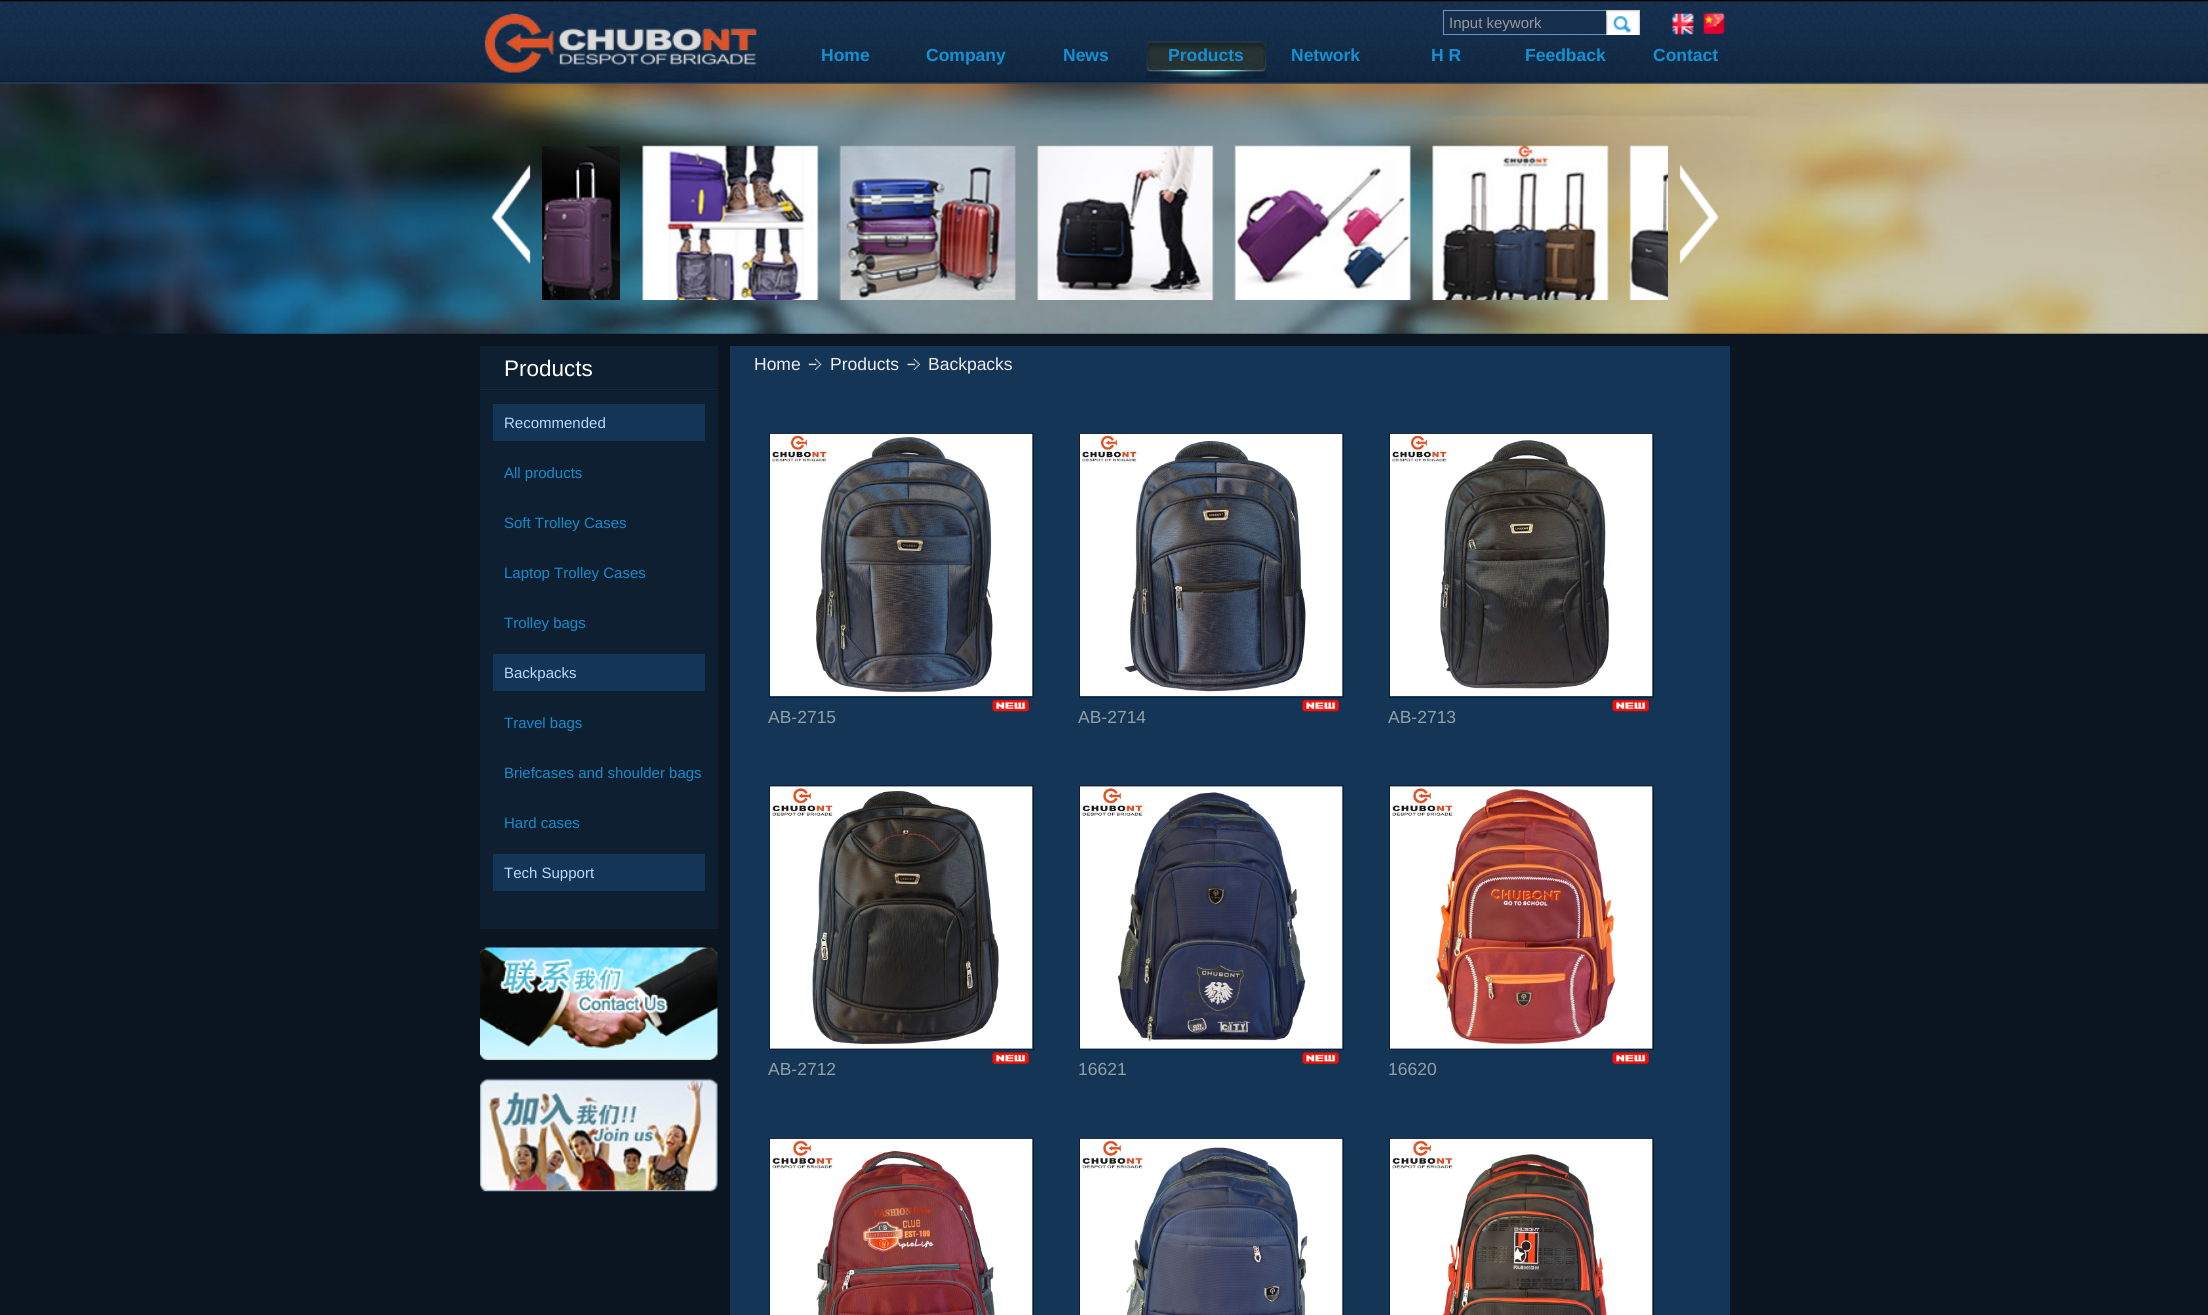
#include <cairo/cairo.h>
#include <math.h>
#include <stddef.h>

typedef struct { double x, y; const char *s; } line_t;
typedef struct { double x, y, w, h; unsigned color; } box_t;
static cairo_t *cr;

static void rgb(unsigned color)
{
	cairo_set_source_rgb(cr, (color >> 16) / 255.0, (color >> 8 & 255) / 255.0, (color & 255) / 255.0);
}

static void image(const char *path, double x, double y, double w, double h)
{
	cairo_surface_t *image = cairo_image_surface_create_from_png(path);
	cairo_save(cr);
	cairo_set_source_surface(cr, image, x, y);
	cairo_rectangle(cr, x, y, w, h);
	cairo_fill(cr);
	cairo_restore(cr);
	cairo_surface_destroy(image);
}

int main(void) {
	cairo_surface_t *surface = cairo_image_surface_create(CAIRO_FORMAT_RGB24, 2208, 1315);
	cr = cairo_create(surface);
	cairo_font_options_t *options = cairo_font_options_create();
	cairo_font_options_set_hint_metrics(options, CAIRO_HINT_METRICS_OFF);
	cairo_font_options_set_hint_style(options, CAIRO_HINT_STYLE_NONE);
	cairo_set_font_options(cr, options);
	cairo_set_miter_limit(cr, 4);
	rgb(0x0b1521);
	cairo_paint(cr);
	image("img/1.png", 0, 0, 2208, 84);
	image("img/7.png", 0, 83, 2208, 251);
	image("img/2.png", 480, 0, 282, 84);
	{
		static const box_t items[] = {
			{1445, 11, 161, 23, 0x152e4c},
			{1443, 10, 163, 1, 0x7393bf},
			{1443, 34, 163, 1, 0x7393bf},
			{1443, 10, 1, 25, 0x7393bf},
		};
		for (size_t i = 0; i < sizeof items / sizeof *items; i++) {
			rgb(items[i].color);
			cairo_rectangle(cr, items[i].x, items[i].y, items[i].w, items[i].h);
			cairo_fill(cr);
		}
	}
	image("img/3.png", 1606, 10, 34, 25);
	image("img/4.png", 1672, 13, 22, 22);
	image("img/5.png", 1703, 12, 22, 22);
	image("img/6.png", 1146, 41, 121, 38);
	image("img/8.png", 491, 164, 40, 100);
	image("img/9.png", 542, 146, 78, 154);
	image("img/10.png", 642, 145, 177, 155);
	image("img/11.png", 839, 145, 177, 155);
	image("img/12.png", 1037, 145, 177, 155);
	image("img/13.png", 1234, 145, 177, 155);
	image("img/14.png", 1432, 145, 177, 155);
	image("img/15.png", 1629, 145, 39, 155);
	image("img/16.png", 1679, 164, 40, 100);
	rgb(0x153556);
	cairo_rectangle(cr, 730, 346, 1000, 969);
	cairo_fill(cr);
	rgb(0x0e1f31);
	cairo_rectangle(cr, 480, 346, 238, 583);
	cairo_fill(cr);
	image("img/17.png", 480, 389, 237, 2);
	{
		static const box_t items[] = {
			{493, 404, 212, 37, 0x143556},
			{493, 654, 212, 37, 0x143556},
			{493, 854, 212, 37, 0x143556},
		};
		for (size_t i = 0; i < sizeof items / sizeof *items; i++) {
			rgb(items[i].color);
			cairo_rectangle(cr, items[i].x, items[i].y, items[i].w, items[i].h);
			cairo_fill(cr);
		}
	}
	image("img/18.png", 480, 947, 238, 113);
	image("img/19.png", 480, 1078, 238, 114);
	image("img/20.png", 808, 358, 14, 12);
	image("img/21.png", 907, 358, 13, 12);
	image("img/22.png", 992, 700, 37, 12);
	cairo_rectangle(cr, 769.5, 433.5, 264, 264);
	rgb(0x0e1f31);
	cairo_set_line_width(cr, 1);
	cairo_stroke(cr);
	image("img/23.png", 770, 433, 263, 264);
	image("img/22.png", 1302, 700, 37, 12);
	cairo_rectangle(cr, 1079.5, 433.5, 264, 264);
	cairo_stroke(cr);
	image("img/24.png", 1080, 433, 263, 264);
	image("img/22.png", 1612, 700, 37, 12);
	cairo_rectangle(cr, 1389.5, 433.5, 264, 264);
	cairo_stroke(cr);
	image("img/25.png", 1390, 433, 263, 264);
	image("img/26.png", 992, 1052, 37, 12);
	cairo_rectangle(cr, 769.5, 785.5, 264, 264);
	cairo_stroke(cr);
	image("img/27.png", 770, 786, 263, 263);
	image("img/26.png", 1302, 1052, 37, 12);
	cairo_rectangle(cr, 1079.5, 785.5, 264, 264);
	cairo_stroke(cr);
	image("img/28.png", 1080, 786, 263, 263);
	image("img/26.png", 1612, 1052, 37, 12);
	cairo_rectangle(cr, 1389.5, 785.5, 264, 264);
	cairo_stroke(cr);
	image("img/29.png", 1390, 786, 263, 263);
	cairo_rectangle(cr, 769.5, 1138.5, 264, 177);
	cairo_stroke(cr);
	image("img/30.png", 770, 1138, 263, 177);
	cairo_rectangle(cr, 1079.5, 1138.5, 264, 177);
	cairo_stroke(cr);
	image("img/31.png", 1080, 1138, 263, 177);
	cairo_rectangle(cr, 1389.5, 1138.5, 264, 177);
	cairo_stroke(cr);
	image("img/32.png", 1390, 1138, 263, 177);
	cairo_select_font_face(cr, "Liberation Sans", CAIRO_FONT_SLANT_NORMAL, CAIRO_FONT_WEIGHT_NORMAL);
	cairo_set_font_size(cr, 15);
	rgb(0x999999);
	cairo_move_to(cr, 1449, 28);
	cairo_show_text(cr, "Input keywork");
	cairo_select_font_face(cr, "Liberation Sans", CAIRO_FONT_SLANT_NORMAL, CAIRO_FONT_WEIGHT_BOLD);
	cairo_set_font_size(cr, 17.5);
	rgb(0x1391d5);
	{
		static const line_t items[] = {
			{821, 61, "Home"},
			{926, 61, "Company"},
			{1063, 61, "News"},
			{1168, 61, "Products"},
			{1291, 61, "Network"},
			{1431, 61, "H R"},
			{1525, 61, "Feedback"},
			{1653, 61, "Contact"},
		};
		for (size_t i = 0; i < sizeof items / sizeof *items; i++) {
			cairo_move_to(cr, items[i].x, items[i].y);
			cairo_show_text(cr, items[i].s);
		}
	}
	cairo_select_font_face(cr, "Liberation Sans", CAIRO_FONT_SLANT_NORMAL, CAIRO_FONT_WEIGHT_NORMAL);
	cairo_set_font_size(cr, 22.5);
	rgb(0xffffff);
	cairo_move_to(cr, 504, 376);
	cairo_show_text(cr, "Products");
	cairo_set_font_size(cr, 15);
	rgb(0xbad9fa);
	cairo_move_to(cr, 504, 428);
	cairo_show_text(cr, "Recommended");
	rgb(0x138ccc);
	{
		static const line_t items[] = {
			{504, 478, "All products"},
			{504, 528, "Soft Trolley Cases"},
			{504, 578, "Laptop Trolley Cases"},
			{504, 628, "Trolley bags"},
		};
		for (size_t i = 0; i < sizeof items / sizeof *items; i++) {
			cairo_move_to(cr, items[i].x, items[i].y);
			cairo_show_text(cr, items[i].s);
		}
	}
	rgb(0xbad9fa);
	cairo_move_to(cr, 504, 678);
	cairo_show_text(cr, "Backpacks");
	rgb(0x138ccc);
	{
		static const line_t items[] = {
			{504, 728, "Travel bags"},
			{504, 778, "Briefcases and shoulder bags"},
			{504, 828, "Hard cases"},
		};
		for (size_t i = 0; i < sizeof items / sizeof *items; i++) {
			cairo_move_to(cr, items[i].x, items[i].y);
			cairo_show_text(cr, items[i].s);
		}
	}
	rgb(0xbad9fa);
	cairo_move_to(cr, 504, 878);
	cairo_show_text(cr, "Tech Support");
	cairo_set_font_size(cr, 17.5);
	rgb(0xeeeeee);
	{
		static const line_t items[] = {
			{754, 370, "Home"},
			{830, 370, "Products"},
			{928, 370, "Backpacks"},
		};
		for (size_t i = 0; i < sizeof items / sizeof *items; i++) {
			cairo_move_to(cr, items[i].x, items[i].y);
			cairo_show_text(cr, items[i].s);
		}
	}
	rgb(0x91a0a7);
	{
		static const line_t items[] = {
			{768, 723, "AB-2715"},
			{1078, 723, "AB-2714"},
			{1388, 723, "AB-2713"},
			{768, 1075, "AB-2712"},
			{1078, 1075, "16621"},
			{1388, 1075, "16620"},
		};
		for (size_t i = 0; i < sizeof items / sizeof *items; i++) {
			cairo_move_to(cr, items[i].x, items[i].y);
			cairo_show_text(cr, items[i].s);
		}
	}
	cairo_surface_write_to_png(surface, "page.png");
	cairo_font_options_destroy(options);
	cairo_destroy(cr);
	cairo_surface_destroy(surface);
	return 0;
}
